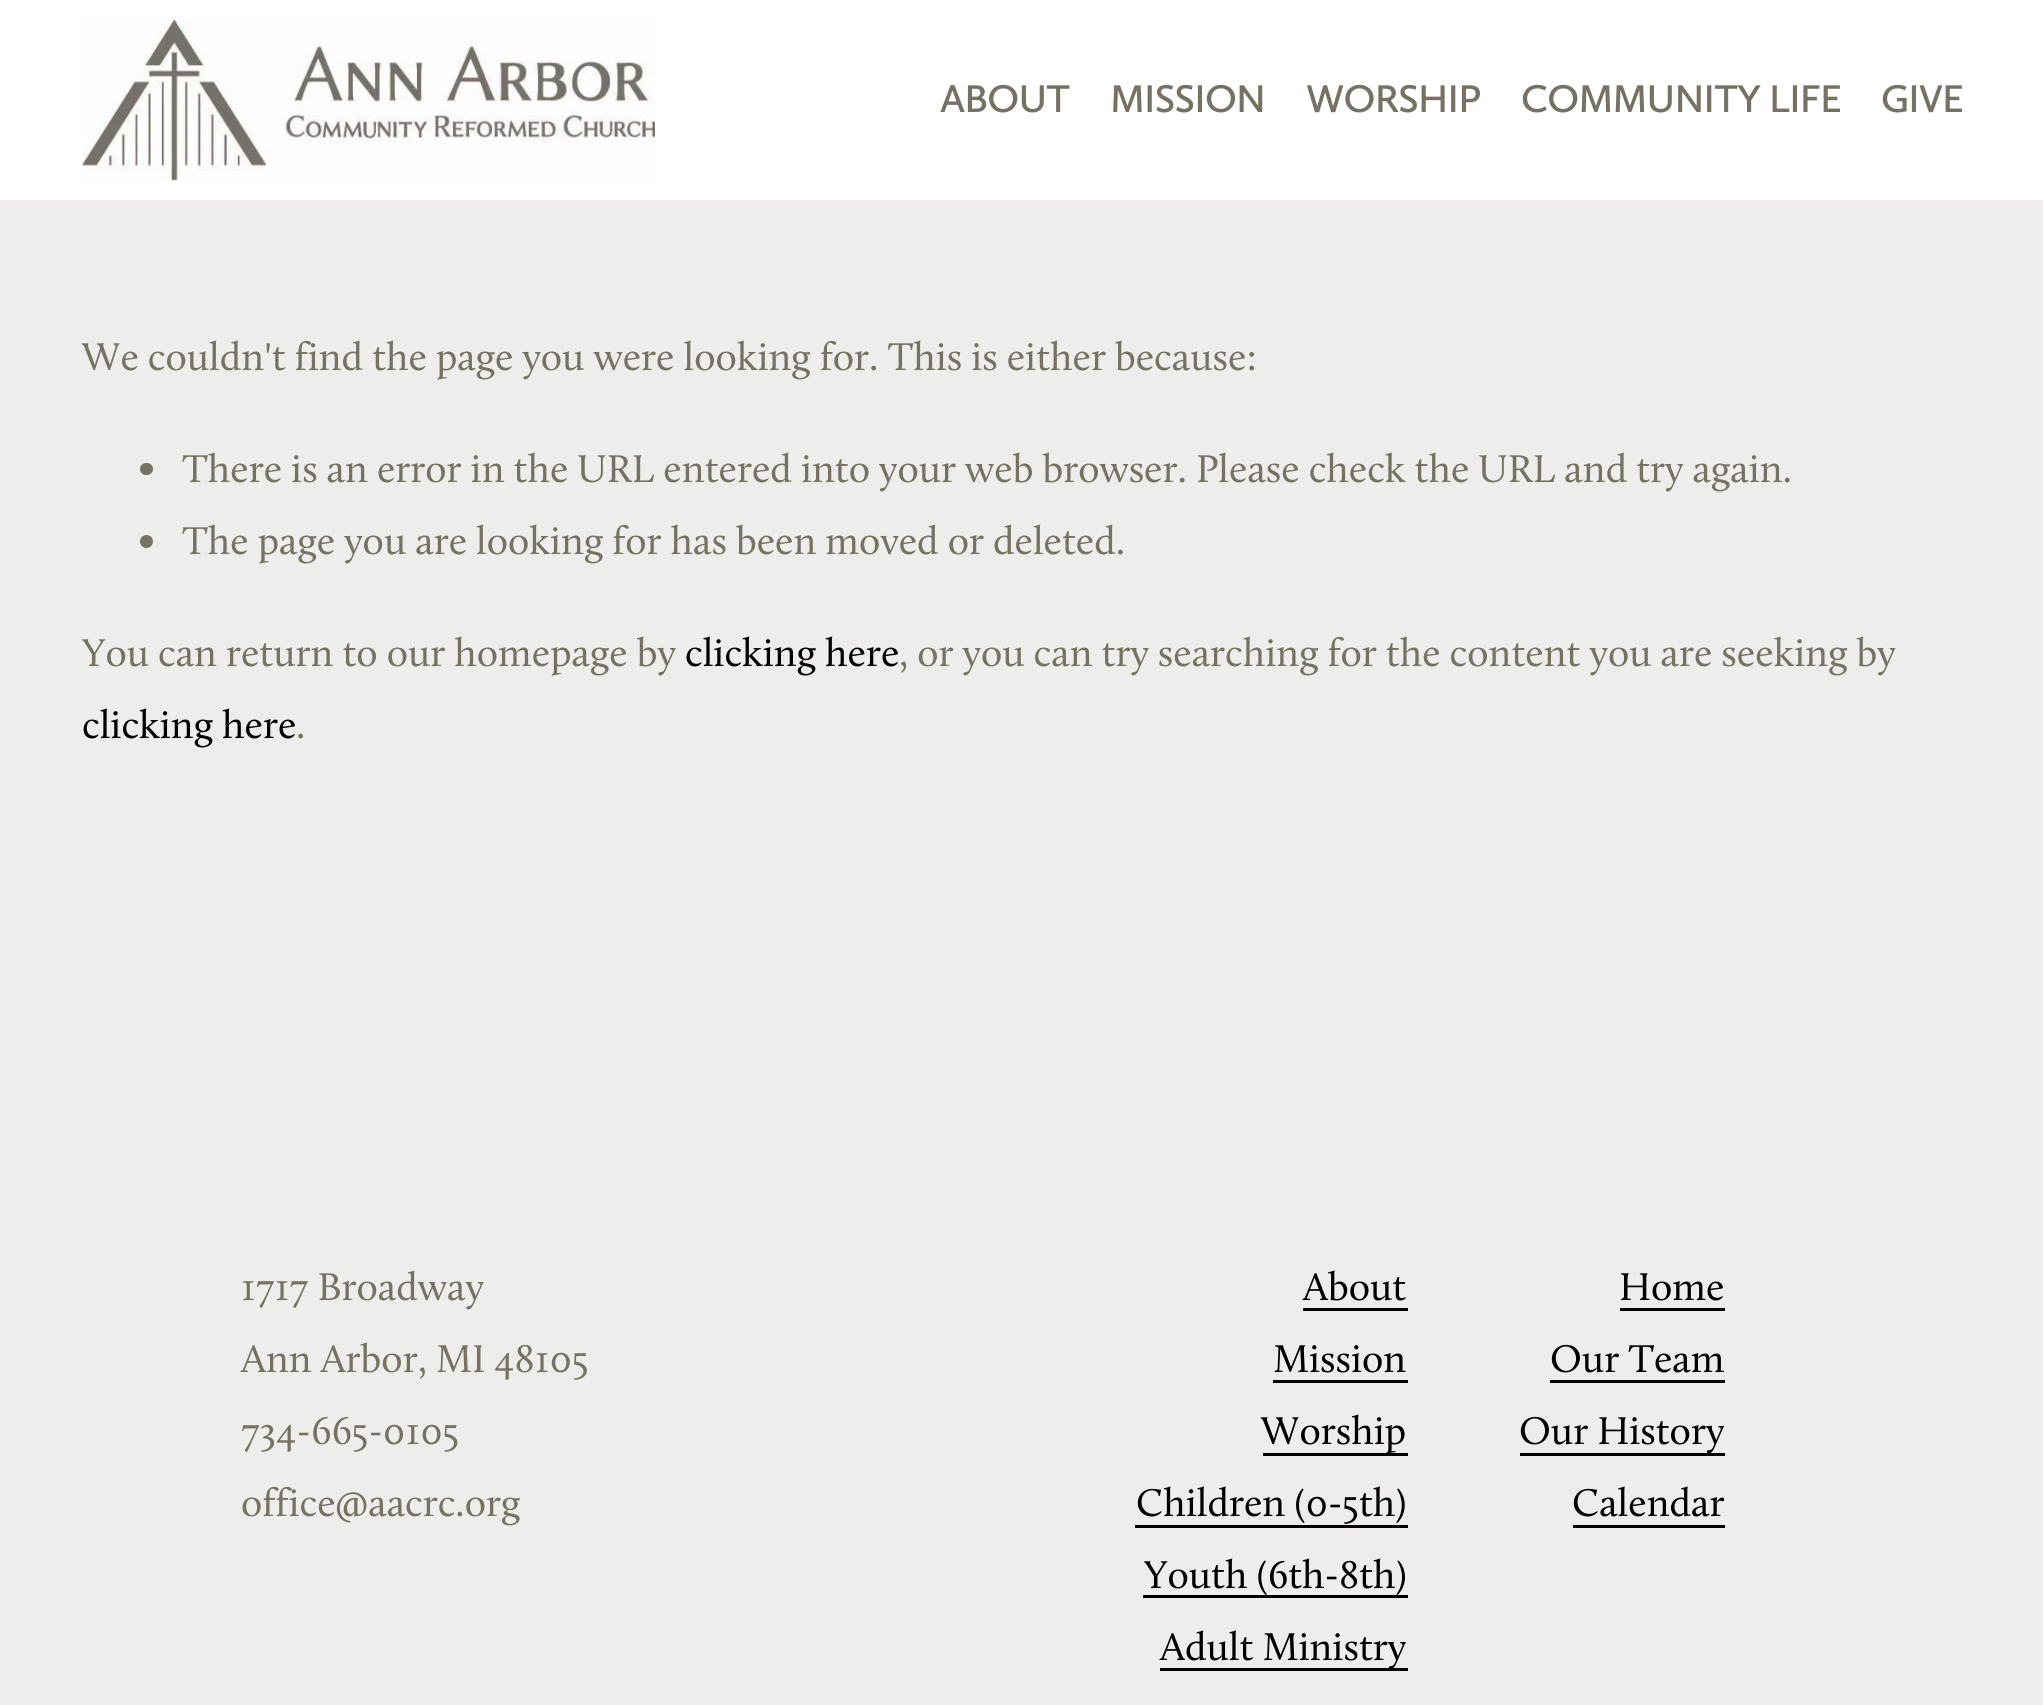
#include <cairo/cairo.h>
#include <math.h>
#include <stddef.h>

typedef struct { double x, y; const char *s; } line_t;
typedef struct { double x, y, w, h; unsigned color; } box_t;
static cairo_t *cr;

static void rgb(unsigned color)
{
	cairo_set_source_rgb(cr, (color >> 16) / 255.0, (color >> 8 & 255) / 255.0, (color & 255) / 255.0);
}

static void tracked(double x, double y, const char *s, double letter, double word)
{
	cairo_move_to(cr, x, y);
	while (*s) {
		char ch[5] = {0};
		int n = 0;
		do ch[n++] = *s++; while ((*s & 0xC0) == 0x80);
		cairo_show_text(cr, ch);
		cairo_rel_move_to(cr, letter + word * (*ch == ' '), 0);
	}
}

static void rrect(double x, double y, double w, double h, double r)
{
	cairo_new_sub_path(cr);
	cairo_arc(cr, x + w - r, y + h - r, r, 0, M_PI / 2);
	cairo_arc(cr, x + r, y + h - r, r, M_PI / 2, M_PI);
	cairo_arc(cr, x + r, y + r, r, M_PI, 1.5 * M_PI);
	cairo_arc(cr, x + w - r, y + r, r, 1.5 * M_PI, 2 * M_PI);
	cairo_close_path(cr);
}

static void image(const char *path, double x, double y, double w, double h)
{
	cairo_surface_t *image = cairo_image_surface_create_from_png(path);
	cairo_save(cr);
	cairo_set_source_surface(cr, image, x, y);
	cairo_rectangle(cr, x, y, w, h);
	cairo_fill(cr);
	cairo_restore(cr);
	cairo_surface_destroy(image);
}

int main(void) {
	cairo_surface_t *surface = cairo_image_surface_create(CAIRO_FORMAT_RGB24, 2043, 1705);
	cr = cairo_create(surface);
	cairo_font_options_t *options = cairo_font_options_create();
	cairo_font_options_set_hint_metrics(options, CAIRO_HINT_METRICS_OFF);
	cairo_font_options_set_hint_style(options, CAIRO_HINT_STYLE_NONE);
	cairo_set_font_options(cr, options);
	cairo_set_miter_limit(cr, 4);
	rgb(0xeeedeb);
	cairo_paint(cr);
	rgb(0xffffff);
	cairo_rectangle(cr, 0, 0, 2043, 200);
	cairo_fill(cr);
	image("img/1.png", 82, 20, 573, 161);
	rgb(0x757263);
	rrect(140, 463, 13, 12, 6);
	cairo_fill(cr);
	cairo_arc(cr, 146.5, 541.5, 6.5, 0, 2 * M_PI);
	cairo_fill(cr);
	{
		static const box_t items[] = {
			{1303, 1308, 105, 3, 0x000000},
			{1273, 1380, 135, 3, 0x000000},
			{1263, 1453, 145, 3, 0x000000},
			{1135, 1525, 273, 3, 0x000000},
			{1143, 1595, 265, 3, 0x000000},
			{1160, 1668, 248, 3, 0x000000},
			{1620, 1308, 105, 3, 0x000000},
			{1550, 1380, 175, 3, 0x000000},
			{1520, 1453, 205, 3, 0x000000},
			{1573, 1525, 152, 3, 0x000000},
		};
		for (size_t i = 0; i < sizeof items / sizeof *items; i++) {
			rgb(items[i].color);
			cairo_rectangle(cr, items[i].x, items[i].y, items[i].w, items[i].h);
			cairo_fill(cr);
		}
	}
	cairo_select_font_face(cr, "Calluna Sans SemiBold", CAIRO_FONT_SLANT_NORMAL, CAIRO_FONT_WEIGHT_NORMAL);
	cairo_set_font_size(cr, 40);
	rgb(0x757263);
	{
		static const line_t items[] = {
			{940, 112, "ABOUT"},
			{1110, 112, "MISSION"},
			{1306, 112, "WORSHIP"},
			{1521, 112, "COMMUNITY LIFE"},
			{1881, 112, "GIVE"},
		};
		for (size_t i = 0; i < sizeof items / sizeof *items; i++) {
			tracked(items[i].x, items[i].y, items[i].s, -0.75, 0);
		}
	}
	cairo_select_font_face(cr, "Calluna", CAIRO_FONT_SLANT_NORMAL, CAIRO_FONT_WEIGHT_NORMAL);
	{
		static const line_t items[] = {
			{82, 370, "We couldn't find the page you were looking for. This is either because:"},
			{182, 482, "There is an error in the URL entered into your web browser. Please check the URL and try again."},
			{182, 554, "The page you are looking for has been moved or deleted."},
			{82, 666, "You can return to our homepage by"},
		};
		for (size_t i = 0; i < sizeof items / sizeof *items; i++) {
			cairo_move_to(cr, items[i].x, items[i].y);
			cairo_show_text(cr, items[i].s);
		}
	}
	rgb(0x000000);
	cairo_move_to(cr, 685, 666);
	cairo_show_text(cr, "clicking here");
	rgb(0x757263);
	cairo_move_to(cr, 899, 666);
	cairo_show_text(cr, ", or you can try searching for the content you are seeking by");
	rgb(0x000000);
	cairo_move_to(cr, 82, 738);
	cairo_show_text(cr, "clicking here");
	rgb(0x757263);
	{
		static const line_t items[] = {
			{296, 738, "."},
			{241, 1300, "1717 Broadway"},
			{241, 1372, "Ann Arbor, MI 48105"},
			{241, 1444, "734-665-0105"},
			{241, 1516, "office@aacrc.org"},
		};
		for (size_t i = 0; i < sizeof items / sizeof *items; i++) {
			cairo_move_to(cr, items[i].x, items[i].y);
			cairo_show_text(cr, items[i].s);
		}
	}
	rgb(0x000000);
	{
		static const line_t items[] = {
			{1303, 1300, "About"},
			{1273, 1372, "Mission"},
			{1261, 1444, "Worship"},
			{1136, 1516, "Children (0-5th)"},
			{1144, 1588, "Youth (6th-8th)"},
			{1160, 1660, "Adult Ministry"},
			{1619, 1300, "Home"},
			{1550, 1372, "Our Team"},
			{1519, 1444, "Our History"},
			{1572, 1516, "Calendar"},
		};
		for (size_t i = 0; i < sizeof items / sizeof *items; i++) {
			cairo_move_to(cr, items[i].x, items[i].y);
			cairo_show_text(cr, items[i].s);
		}
	}
	cairo_surface_write_to_png(surface, "page.png");
	cairo_font_options_destroy(options);
	cairo_destroy(cr);
	cairo_surface_destroy(surface);
	return 0;
}
